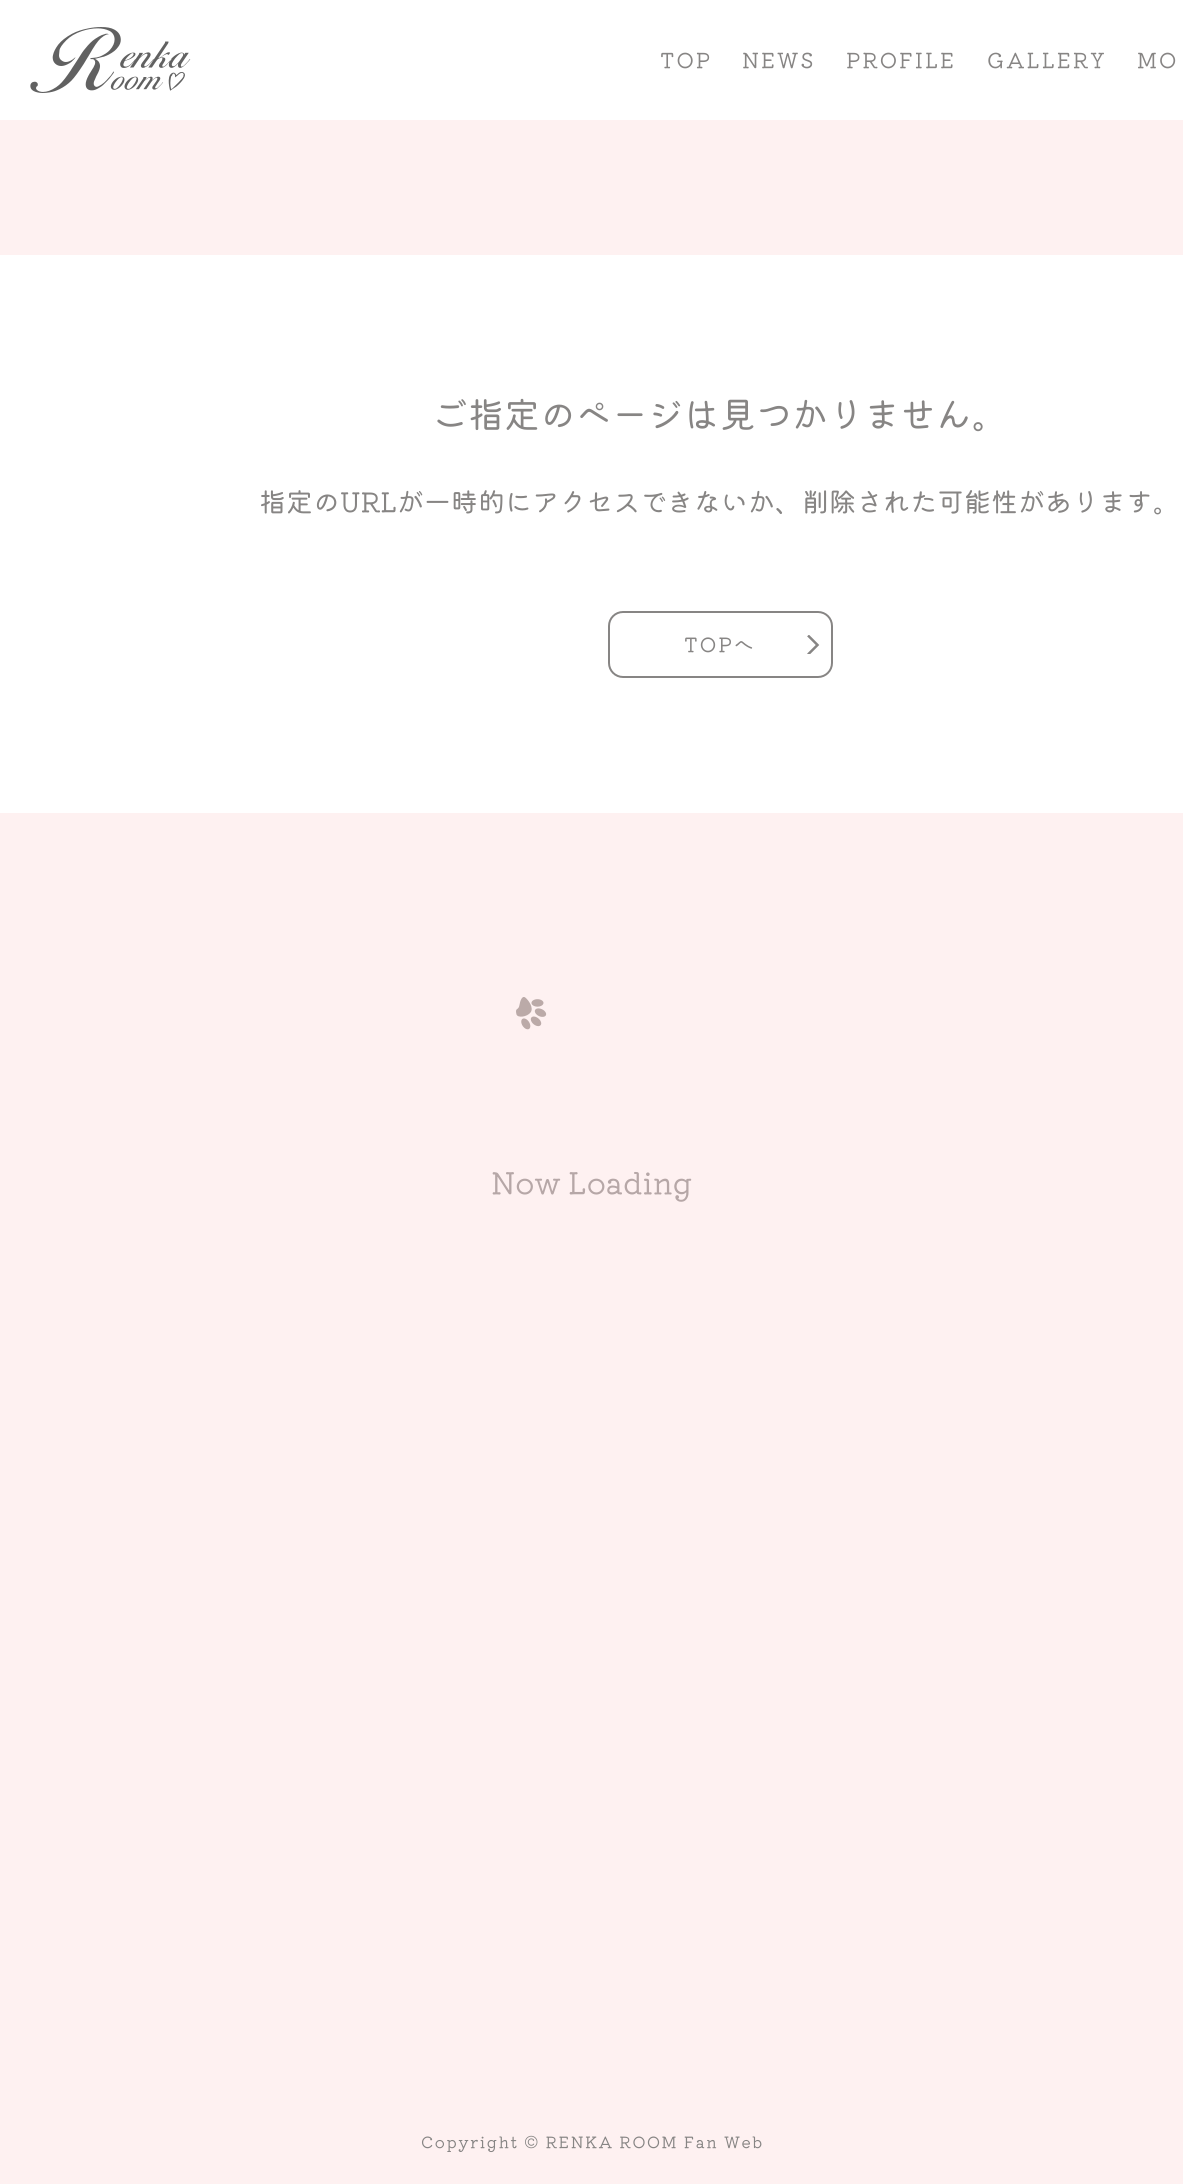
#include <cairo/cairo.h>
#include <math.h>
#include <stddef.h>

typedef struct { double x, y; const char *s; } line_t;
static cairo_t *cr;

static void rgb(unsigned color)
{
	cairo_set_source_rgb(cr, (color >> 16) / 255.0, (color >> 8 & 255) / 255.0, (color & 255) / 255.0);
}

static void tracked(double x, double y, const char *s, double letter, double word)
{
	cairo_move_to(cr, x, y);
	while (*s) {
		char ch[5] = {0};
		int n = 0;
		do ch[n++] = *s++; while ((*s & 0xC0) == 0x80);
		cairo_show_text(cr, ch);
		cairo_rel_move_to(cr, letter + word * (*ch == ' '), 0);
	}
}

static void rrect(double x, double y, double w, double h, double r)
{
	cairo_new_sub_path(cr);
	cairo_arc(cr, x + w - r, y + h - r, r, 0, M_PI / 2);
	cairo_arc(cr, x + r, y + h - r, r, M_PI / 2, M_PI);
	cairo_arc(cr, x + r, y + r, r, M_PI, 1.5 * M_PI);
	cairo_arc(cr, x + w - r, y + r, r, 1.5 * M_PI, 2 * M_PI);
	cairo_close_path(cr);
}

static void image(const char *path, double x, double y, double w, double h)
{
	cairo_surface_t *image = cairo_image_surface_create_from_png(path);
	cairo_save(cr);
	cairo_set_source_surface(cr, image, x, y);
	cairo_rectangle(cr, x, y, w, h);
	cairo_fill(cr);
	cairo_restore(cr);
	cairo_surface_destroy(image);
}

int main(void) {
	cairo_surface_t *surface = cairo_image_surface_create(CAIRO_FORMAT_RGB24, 1183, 2184);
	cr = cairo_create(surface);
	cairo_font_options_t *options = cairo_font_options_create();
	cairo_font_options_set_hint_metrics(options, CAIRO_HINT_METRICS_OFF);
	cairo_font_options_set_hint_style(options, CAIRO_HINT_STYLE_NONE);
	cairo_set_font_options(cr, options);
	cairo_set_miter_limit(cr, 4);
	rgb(0xfef1f1);
	cairo_paint(cr);
	rgb(0xffffff);
	cairo_rectangle(cr, 0, 0, 1183, 120);
	cairo_fill(cr);
	image("img/1.png", 30, 27, 161, 66);
	cairo_rectangle(cr, 0, 255, 1183, 558);
	cairo_fill(cr);
	rrect(609, 612, 223, 65, 14);
	rgb(0x878584);
	cairo_stroke(cr);
	cairo_save(cr);
	cairo_rectangle(cr, 807, 635, 14, 19);
	cairo_clip(cr);
	cairo_new_path(cr);
	cairo_move_to(cr, 808, 635.5);
	cairo_line_to(cr, 817.5, 645);
	cairo_line_to(cr, 808, 654.5);
	cairo_set_line_width(cr, 2.5);
	cairo_stroke(cr);
	cairo_restore(cr);
	image("img/2.png", 516, 997, 31, 33);
	cairo_select_font_face(cr, "Kiwi Maru", CAIRO_FONT_SLANT_NORMAL, CAIRO_FONT_WEIGHT_NORMAL);
	cairo_set_font_size(cr, 21);
	{
		static const line_t items[] = {
			{660, 68, "TOP"},
			{742, 68, "NEWS"},
			{846, 68, "PROFILE"},
			{987, 68, "GALLERY"},
			{1137, 68, "MO"},
		};
		for (size_t i = 0; i < sizeof items / sizeof *items; i++) {
			tracked(items[i].x, items[i].y, items[i].s, 2, 0);
		}
	}
	cairo_set_font_size(cr, 36);
	cairo_move_to(cr, 432, 428);
	cairo_show_text(cr, "ご指定のページは見つかりません。");
	cairo_set_font_size(cr, 27);
	cairo_move_to(cr, 259, 512);
	cairo_show_text(cr, "指定のURLが一時的にアクセスできないか、削除された可能性があります。");
	cairo_set_font_size(cr, 20);
	tracked(684, 652, "TOPへ", 2, 0);
	cairo_set_font_size(cr, 30);
	rgb(0xb6a7a7);
	cairo_move_to(cr, 491, 1194);
	cairo_show_text(cr, "Now Loading");
	cairo_set_font_size(cr, 15.75);
	rgb(0x878584);
	tracked(421, 2148, "Copyright © RENKA ROOM Fan Web", 1.6, 0);
	cairo_surface_write_to_png(surface, "page.png");
	cairo_font_options_destroy(options);
	cairo_destroy(cr);
	cairo_surface_destroy(surface);
	return 0;
}
